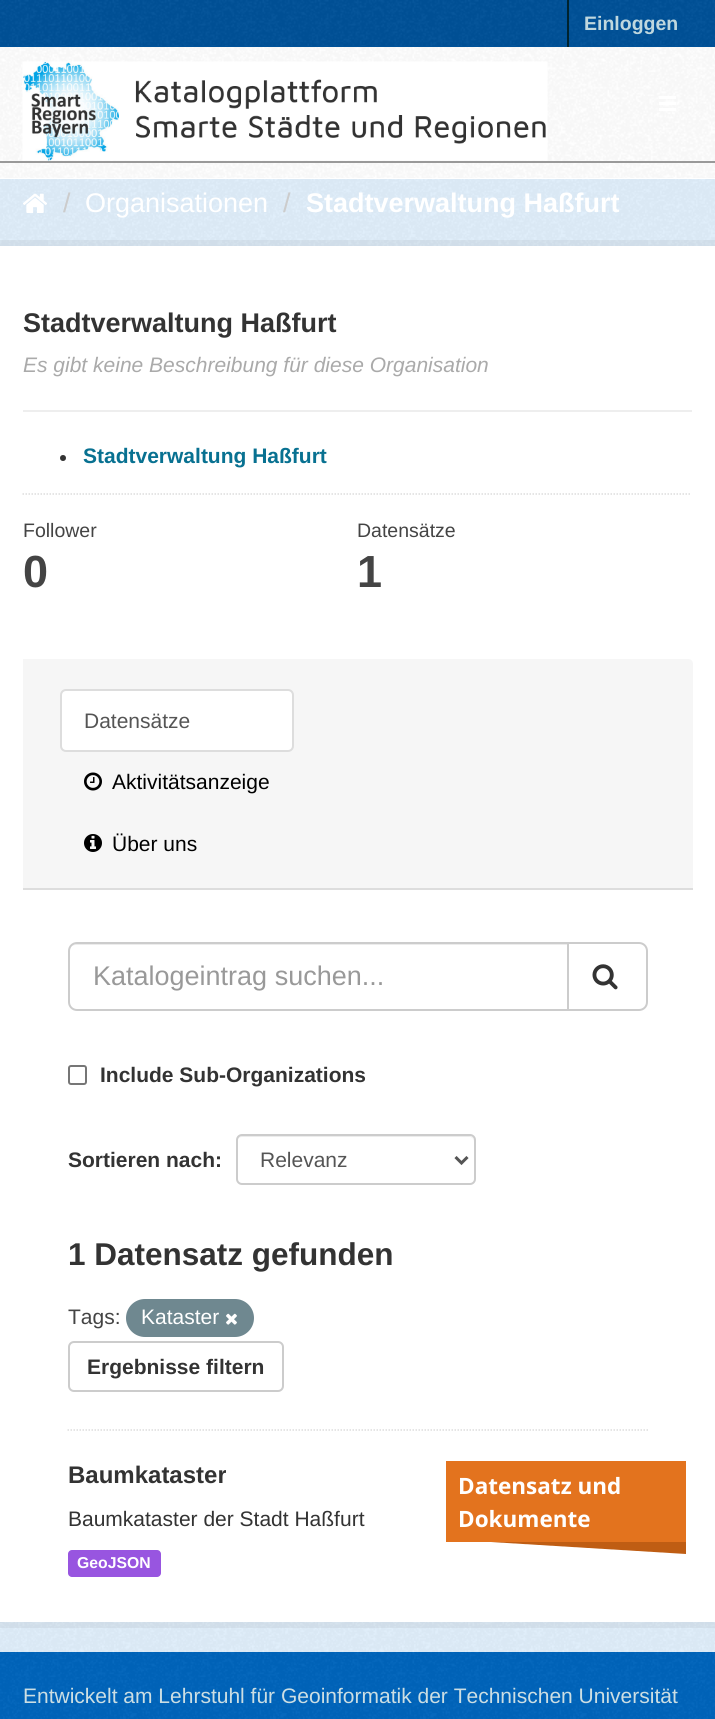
#include <cairo/cairo.h>
#include <math.h>
#include <stddef.h>

static cairo_t *cr;

static void rgb(unsigned color)
{
	cairo_set_source_rgb(cr, (color >> 16) / 255.0, (color >> 8 & 255) / 255.0, (color & 255) / 255.0);
}

static void rrect(double x, double y, double w, double h, double r)
{
	cairo_new_sub_path(cr);
	cairo_arc(cr, x + w - r, y + h - r, r, 0, M_PI / 2);
	cairo_arc(cr, x + r, y + h - r, r, M_PI / 2, M_PI);
	cairo_arc(cr, x + r, y + r, r, M_PI, 1.5 * M_PI);
	cairo_arc(cr, x + w - r, y + r, r, 1.5 * M_PI, 2 * M_PI);
	cairo_close_path(cr);
}

static void image(const char *path, double x, double y, double w, double h)
{
	cairo_surface_t *image = cairo_image_surface_create_from_png(path);
	cairo_save(cr);
	cairo_set_source_surface(cr, image, x, y);
	cairo_rectangle(cr, x, y, w, h);
	cairo_fill(cr);
	cairo_restore(cr);
	cairo_surface_destroy(image);
}

int main(void) {
	cairo_surface_t *surface = cairo_image_surface_create(CAIRO_FORMAT_RGB24, 715, 1719);
	cr = cairo_create(surface);
	cairo_font_options_t *options = cairo_font_options_create();
	cairo_font_options_set_hint_metrics(options, CAIRO_HINT_METRICS_OFF);
	cairo_font_options_set_hint_style(options, CAIRO_HINT_STYLE_NONE);
	cairo_set_font_options(cr, options);
	cairo_set_miter_limit(cr, 4);
	rgb(0xe1f0fc);
	cairo_paint(cr);
	image("img/1.png", 0, 179, 715, 1473);
	rgb(0x005299);
	cairo_rectangle(cr, 0, 0, 715, 47);
	cairo_fill(cr);
	image("img/2.png", 0, 0, 715, 46);
	rgb(0x00232e);
	cairo_rectangle(cr, 567, 0, 2, 47);
	cairo_fill(cr);
	rgb(0xffffff);
	cairo_rectangle(cr, 0, 47, 715, 132);
	cairo_fill(cr);
	image("img/3.png", 0, 47, 715, 131);
	rgb(0x999999);
	cairo_rectangle(cr, 0, 161, 715, 2);
	cairo_fill(cr);
	image("img/4.png", 22, 61, 526, 100);
	image("img/5.png", 659, 96, 17, 15);
	image("img/6.png", 23, 193, 24, 20);
	cairo_rectangle(cr, -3, 243, 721, 1382);
	cairo_set_source_rgba(cr, 0, 0, 0, 0.05);
	cairo_set_line_width(cr, 6);
	cairo_stroke(cr);
	rgb(0xffffff);
	cairo_rectangle(cr, 0, 246, 715, 1376);
	cairo_fill(cr);
	rgb(0xeeeeee);
	cairo_rectangle(cr, 23, 410, 669, 2);
	cairo_fill(cr);
	rgb(0x333333);
	cairo_arc(cr, 63, 458, 3, 0, 2 * M_PI);
	cairo_fill(cr);
	cairo_new_path(cr);
	cairo_move_to(cr, 22.5, 494);
	cairo_line_to(cr, 691.5, 494);
	rgb(0xdddddd);
	cairo_set_line_width(cr, 1.5);
	cairo_set_dash(cr, (double[]){1.5, 1.5}, 2, 0);
	cairo_stroke(cr);
	rgb(0xf6f6f6);
	cairo_new_path(cr);
	cairo_move_to(cr, 23, 659);
	cairo_line_to(cr, 688, 659);
	cairo_curve_to(cr, 691, 659, 693, 661, 693, 664);
	cairo_line_to(cr, 693, 890);
	cairo_line_to(cr, 23, 890);
	cairo_close_path(cr);
	cairo_fill(cr);
	rgb(0xdddddd);
	cairo_rectangle(cr, 23, 888, 670, 2);
	cairo_fill(cr);
	rgb(0xffffff);
	rrect(61, 690, 232, 61, 5);
	cairo_fill_preserve(cr);
	rgb(0xdddddd);
	cairo_set_line_width(cr, 2);
	cairo_set_dash(cr, NULL, 0, 0);
	cairo_stroke(cr);
	image("img/7.png", 84, 772, 18, 19);
	image("img/8.png", 84, 834, 18, 18);
	cairo_new_path(cr);
	cairo_move_to(cr, 67.5, 1430);
	cairo_line_to(cr, 648, 1430);
	cairo_set_line_width(cr, 1.5);
	cairo_set_dash(cr, (double[]){1.5, 1.5}, 2, 0);
	cairo_stroke(cr);
	rgb(0xececec);
	cairo_new_path(cr);
	cairo_move_to(cr, 76, 945);
	cairo_line_to(cr, 567, 945);
	cairo_line_to(cr, 567, 944);
	cairo_line_to(cr, 77, 944);
	cairo_curve_to(cr, 73, 944, 69, 948, 69, 952);
	cairo_curve_to(cr, 69, 948, 72, 945, 76, 945);
	cairo_close_path(cr);
	cairo_fill(cr);
	cairo_new_path(cr);
	cairo_move_to(cr, 77, 943);
	cairo_line_to(cr, 568, 943);
	cairo_line_to(cr, 568, 1010);
	cairo_line_to(cr, 77, 1010);
	cairo_curve_to(cr, 72.5, 1010, 69, 1006.5, 69, 1002);
	cairo_line_to(cr, 69, 951);
	cairo_curve_to(cr, 69, 946.5, 72.5, 943, 77, 943);
	cairo_close_path(cr);
	rgb(0xcccccc);
	cairo_set_line_width(cr, 2);
	cairo_set_dash(cr, NULL, 0, 0);
	cairo_stroke(cr);
	rgb(0xffffff);
	cairo_new_path(cr);
	cairo_move_to(cr, 568, 943);
	cairo_line_to(cr, 639, 943);
	cairo_curve_to(cr, 643.5, 943, 647, 946.5, 647, 951);
	cairo_line_to(cr, 647, 1002);
	cairo_curve_to(cr, 647, 1006.5, 643.5, 1010, 639, 1010);
	cairo_line_to(cr, 568, 1010);
	cairo_close_path(cr);
	cairo_fill_preserve(cr);
	rgb(0xcccccc);
	cairo_stroke(cr);
	image("img/9.png", 592, 964, 26, 26);
	rrect(69, 1066, 17, 18, 2);
	rgb(0x767676);
	cairo_stroke(cr);
	rgb(0xececec);
	cairo_new_path(cr);
	cairo_move_to(cr, 242, 1137);
	cairo_line_to(cr, 470, 1137);
	cairo_curve_to(cr, 472, 1137, 474, 1139, 474, 1142);
	cairo_line_to(cr, 474, 1141);
	cairo_curve_to(cr, 474, 1138, 472, 1136, 469, 1136);
	cairo_line_to(cr, 242, 1136);
	cairo_curve_to(cr, 239, 1136, 237, 1138, 237, 1141);
	cairo_line_to(cr, 237, 1142);
	cairo_curve_to(cr, 237, 1139, 239, 1137, 242, 1137);
	cairo_close_path(cr);
	cairo_fill(cr);
	rrect(237, 1135, 238, 49, 5);
	rgb(0xcccccc);
	cairo_stroke(cr);
	cairo_new_path(cr);
	cairo_move_to(cr, 455.5, 1157);
	cairo_line_to(cr, 461.5, 1163);
	cairo_line_to(cr, 467.5, 1157);
	rgb(0x555555);
	cairo_set_line_width(cr, 3);
	cairo_stroke(cr);
	rgb(0x6f8890);
	rrect(126, 1299, 128, 38, 19);
	cairo_fill(cr);
	image("img/10.png", 226, 1313, 11, 12);
	rrect(69, 1342, 214, 49, 5);
	rgb(0xcccccc);
	cairo_set_line_width(cr, 2);
	cairo_stroke(cr);
	rgb(0xe3731e);
	cairo_rectangle(cr, 446, 1461, 240, 81);
	cairo_fill(cr);
	rgb(0xbf5d13);
	cairo_new_path(cr);
	cairo_move_to(cr, 686, 1542);
	cairo_line_to(cr, 686, 1554);
	cairo_line_to(cr, 490, 1542);
	cairo_close_path(cr);
	cairo_fill(cr);
	rgb(0x9855e0);
	rrect(68, 1550, 93, 27, 4);
	cairo_fill(cr);
	rgb(0x0065bd);
	cairo_rectangle(cr, 0, 1652, 715, 67);
	cairo_fill(cr);
	image("img/11.png", 0, 1652, 715, 67);
	cairo_select_font_face(cr, "Liberation Sans", CAIRO_FONT_SLANT_NORMAL, CAIRO_FONT_WEIGHT_BOLD);
	cairo_set_font_size(cr, 19.5);
	rgb(0xbfd7de);
	cairo_move_to(cr, 584, 30);
	cairo_show_text(cr, "Einloggen");
	cairo_select_font_face(cr, "Liberation Sans", CAIRO_FONT_SLANT_NORMAL, CAIRO_FONT_WEIGHT_NORMAL);
	cairo_set_font_size(cr, 27);
	rgb(0xcccccc);
	cairo_move_to(cr, 63, 212);
	cairo_show_text(cr, "/");
	rgb(0xffffff);
	cairo_move_to(cr, 85, 212);
	cairo_show_text(cr, "Organisationen");
	rgb(0xcccccc);
	cairo_move_to(cr, 283, 212);
	cairo_show_text(cr, "/");
	cairo_select_font_face(cr, "Liberation Sans", CAIRO_FONT_SLANT_NORMAL, CAIRO_FONT_WEIGHT_BOLD);
	rgb(0xffffff);
	cairo_move_to(cr, 306, 212);
	cairo_show_text(cr, "Stadtverwaltung Haßfurt");
	rgb(0x333333);
	cairo_move_to(cr, 23, 332);
	cairo_show_text(cr, "Stadtverwaltung Haßfurt");
	cairo_select_font_face(cr, "Liberation Sans", CAIRO_FONT_SLANT_ITALIC, CAIRO_FONT_WEIGHT_NORMAL);
	cairo_set_font_size(cr, 21);
	rgb(0xaaaaaa);
	cairo_move_to(cr, 23, 372);
	cairo_show_text(cr, "Es gibt keine Beschreibung für diese Organisation");
	cairo_select_font_face(cr, "Liberation Sans", CAIRO_FONT_SLANT_NORMAL, CAIRO_FONT_WEIGHT_BOLD);
	rgb(0x087191);
	cairo_move_to(cr, 83, 463);
	cairo_show_text(cr, "Stadtverwaltung Haßfurt");
	cairo_select_font_face(cr, "Liberation Sans", CAIRO_FONT_SLANT_NORMAL, CAIRO_FONT_WEIGHT_NORMAL);
	cairo_set_font_size(cr, 19.5);
	rgb(0x444444);
	cairo_move_to(cr, 23, 537);
	cairo_show_text(cr, "Follower");
	cairo_select_font_face(cr, "Liberation Sans", CAIRO_FONT_SLANT_NORMAL, CAIRO_FONT_WEIGHT_BOLD);
	cairo_set_font_size(cr, 45);
	cairo_move_to(cr, 23, 587);
	cairo_show_text(cr, "0");
	cairo_select_font_face(cr, "Liberation Sans", CAIRO_FONT_SLANT_NORMAL, CAIRO_FONT_WEIGHT_NORMAL);
	cairo_set_font_size(cr, 19.5);
	cairo_move_to(cr, 357, 537);
	cairo_show_text(cr, "Datensätze");
	cairo_select_font_face(cr, "Liberation Sans", CAIRO_FONT_SLANT_NORMAL, CAIRO_FONT_WEIGHT_BOLD);
	cairo_set_font_size(cr, 45);
	cairo_move_to(cr, 357, 587);
	cairo_show_text(cr, "1");
	cairo_select_font_face(cr, "Liberation Sans", CAIRO_FONT_SLANT_NORMAL, CAIRO_FONT_WEIGHT_NORMAL);
	cairo_set_font_size(cr, 21);
	rgb(0x555555);
	cairo_move_to(cr, 84, 728);
	cairo_show_text(cr, "Datensätze");
	rgb(0x000000);
	cairo_move_to(cr, 112, 789);
	cairo_show_text(cr, "Aktivitätsanzeige");
	cairo_move_to(cr, 112, 851);
	cairo_show_text(cr, "Über uns");
	cairo_set_font_size(cr, 27);
	rgb(0x999999);
	cairo_move_to(cr, 93, 985);
	cairo_show_text(cr, "Katalogeintrag suchen...");
	cairo_select_font_face(cr, "Liberation Sans", CAIRO_FONT_SLANT_NORMAL, CAIRO_FONT_WEIGHT_BOLD);
	cairo_set_font_size(cr, 21);
	rgb(0x333333);
	cairo_move_to(cr, 100, 1082);
	cairo_show_text(cr, "Include Sub-Organizations");
	cairo_move_to(cr, 68, 1167);
	cairo_show_text(cr, "Sortieren nach:");
	cairo_select_font_face(cr, "Liberation Sans", CAIRO_FONT_SLANT_NORMAL, CAIRO_FONT_WEIGHT_NORMAL);
	rgb(0x555555);
	cairo_move_to(cr, 260, 1167);
	cairo_show_text(cr, "Relevanz");
	cairo_select_font_face(cr, "Liberation Sans", CAIRO_FONT_SLANT_NORMAL, CAIRO_FONT_WEIGHT_BOLD);
	cairo_set_font_size(cr, 31.5);
	rgb(0x333333);
	cairo_move_to(cr, 68, 1265);
	cairo_show_text(cr, "1 Datensatz gefunden");
	cairo_select_font_face(cr, "Liberation Sans", CAIRO_FONT_SLANT_NORMAL, CAIRO_FONT_WEIGHT_NORMAL);
	cairo_set_font_size(cr, 21);
	rgb(0x444444);
	cairo_move_to(cr, 68, 1324);
	cairo_show_text(cr, "Tags:");
	rgb(0xffffff);
	cairo_move_to(cr, 141, 1324);
	cairo_show_text(cr, "Kataster");
	cairo_select_font_face(cr, "Liberation Sans", CAIRO_FONT_SLANT_NORMAL, CAIRO_FONT_WEIGHT_BOLD);
	rgb(0x333333);
	cairo_move_to(cr, 87, 1374);
	cairo_show_text(cr, "Ergebnisse filtern");
	cairo_set_font_size(cr, 24);
	cairo_move_to(cr, 68, 1483);
	cairo_show_text(cr, "Baumkataster");
	cairo_select_font_face(cr, "Liberation Sans", CAIRO_FONT_SLANT_NORMAL, CAIRO_FONT_WEIGHT_NORMAL);
	cairo_set_font_size(cr, 21);
	cairo_move_to(cr, 68, 1526);
	cairo_show_text(cr, "Baumkataster der Stadt Haßfurt");
	cairo_select_font_face(cr, "Open Sans", CAIRO_FONT_SLANT_NORMAL, CAIRO_FONT_WEIGHT_BOLD);
	cairo_set_font_size(cr, 22.5);
	rgb(0xffffff);
	cairo_move_to(cr, 458, 1494);
	cairo_show_text(cr, "Datensatz und");
	cairo_move_to(cr, 458, 1527);
	cairo_show_text(cr, "Dokumente");
	cairo_select_font_face(cr, "Liberation Sans", CAIRO_FONT_SLANT_NORMAL, CAIRO_FONT_WEIGHT_BOLD);
	cairo_set_font_size(cr, 15.75);
	cairo_move_to(cr, 77, 1568);
	cairo_show_text(cr, "GeoJSON");
	cairo_select_font_face(cr, "Liberation Sans", CAIRO_FONT_SLANT_NORMAL, CAIRO_FONT_WEIGHT_NORMAL);
	cairo_set_font_size(cr, 21);
	rgb(0xccdee3);
	cairo_move_to(cr, 23, 1703);
	cairo_show_text(cr, "Entwickelt am Lehrstuhl für Geoinformatik der Technischen Universität");
	cairo_surface_write_to_png(surface, "page.png");
	cairo_font_options_destroy(options);
	cairo_destroy(cr);
	cairo_surface_destroy(surface);
	return 0;
}
